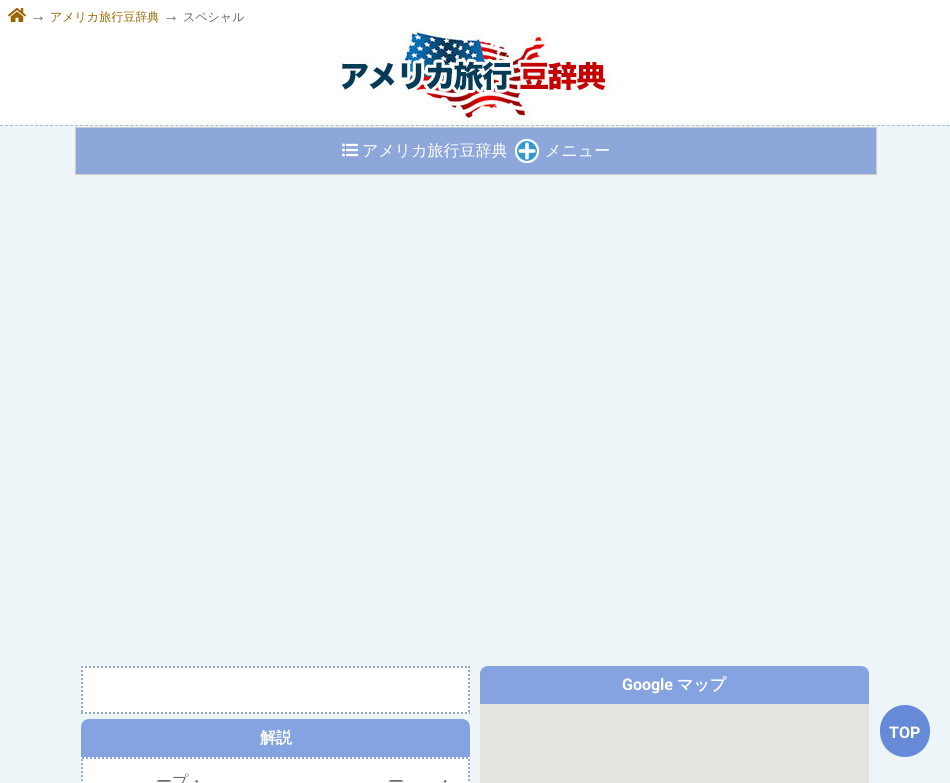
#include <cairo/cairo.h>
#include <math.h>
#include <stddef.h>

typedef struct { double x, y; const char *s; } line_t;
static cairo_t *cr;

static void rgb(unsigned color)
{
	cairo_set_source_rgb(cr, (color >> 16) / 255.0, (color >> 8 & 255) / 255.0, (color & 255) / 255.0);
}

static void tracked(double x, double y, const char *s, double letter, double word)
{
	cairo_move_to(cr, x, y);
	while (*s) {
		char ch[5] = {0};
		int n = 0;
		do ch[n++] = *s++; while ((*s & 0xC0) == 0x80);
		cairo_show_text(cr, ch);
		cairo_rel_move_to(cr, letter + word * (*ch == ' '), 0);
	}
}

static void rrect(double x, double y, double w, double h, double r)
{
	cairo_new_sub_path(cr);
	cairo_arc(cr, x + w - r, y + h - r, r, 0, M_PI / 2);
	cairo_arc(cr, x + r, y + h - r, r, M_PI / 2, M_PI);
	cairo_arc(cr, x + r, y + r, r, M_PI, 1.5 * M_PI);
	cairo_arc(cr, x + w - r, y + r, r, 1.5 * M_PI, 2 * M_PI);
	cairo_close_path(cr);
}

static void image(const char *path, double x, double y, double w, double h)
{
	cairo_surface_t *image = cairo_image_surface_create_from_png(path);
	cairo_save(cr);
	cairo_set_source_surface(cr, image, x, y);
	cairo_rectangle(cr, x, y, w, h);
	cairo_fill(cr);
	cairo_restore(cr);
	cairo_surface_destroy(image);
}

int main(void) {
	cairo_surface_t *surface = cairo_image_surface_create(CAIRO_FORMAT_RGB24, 950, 783);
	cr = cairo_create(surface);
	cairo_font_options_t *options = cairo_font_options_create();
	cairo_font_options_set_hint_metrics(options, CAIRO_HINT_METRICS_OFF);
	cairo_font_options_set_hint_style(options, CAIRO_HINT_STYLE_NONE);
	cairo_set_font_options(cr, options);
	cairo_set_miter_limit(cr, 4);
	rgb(0xedf5f8);
	cairo_paint(cr);
	rgb(0xffffff);
	cairo_rectangle(cr, 0, 0, 950, 125);
	cairo_fill(cr);
	image("img/1.png", 8, 8, 18, 14);
	image("img/2.png", 339, 25, 272, 96);
	cairo_new_path(cr);
	cairo_move_to(cr, 0, 125.5);
	cairo_line_to(cr, 950, 125.5);
	rgb(0x9fbfdf);
	cairo_set_line_width(cr, 1);
	cairo_set_dash(cr, (double[]){3, 2.01}, 2, 0);
	cairo_stroke(cr);
	rgb(0x8ea7db);
	cairo_rectangle(cr, 75.5, 127.5, 801, 47);
	cairo_fill_preserve(cr);
	rgb(0xcccccc);
	cairo_set_dash(cr, NULL, 0, 0);
	cairo_stroke(cr);
	image("img/3.png", 342, 143, 16, 14);
	image("img/4.png", 515, 139, 24, 24);
	rgb(0x85a3e0);
	cairo_new_path(cr);
	cairo_move_to(cr, 488, 666);
	cairo_line_to(cr, 861, 666);
	cairo_curve_to(cr, 865.5, 666, 869, 669.5, 869, 674);
	cairo_line_to(cr, 869, 704);
	cairo_line_to(cr, 480, 704);
	cairo_line_to(cr, 480, 674);
	cairo_curve_to(cr, 480, 669.5, 483.5, 666, 488, 666);
	cairo_close_path(cr);
	cairo_fill(cr);
	rgb(0xe5e3df);
	cairo_rectangle(cr, 480, 704, 389, 79);
	cairo_fill(cr);
	rgb(0xffffff);
	cairo_rectangle(cr, 81, 666, 389, 48);
	cairo_fill(cr);
	cairo_new_path(cr);
	cairo_move_to(cr, 81, 667);
	cairo_line_to(cr, 470, 667);
	rgb(0x8ea7db);
	cairo_set_line_width(cr, 2);
	cairo_set_dash(cr, (double[]){2, 2}, 2, 0);
	cairo_stroke(cr);
	cairo_new_path(cr);
	cairo_move_to(cr, 469, 666);
	cairo_line_to(cr, 469, 714);
	cairo_stroke(cr);
	cairo_new_path(cr);
	cairo_move_to(cr, 81, 713);
	cairo_line_to(cr, 470, 713);
	cairo_stroke(cr);
	cairo_new_path(cr);
	cairo_move_to(cr, 82, 666);
	cairo_line_to(cr, 82, 714);
	cairo_stroke(cr);
	rgb(0x85a3e0);
	cairo_new_path(cr);
	cairo_move_to(cr, 89, 719);
	cairo_line_to(cr, 462, 719);
	cairo_curve_to(cr, 466.5, 719, 470, 722.5, 470, 727);
	cairo_line_to(cr, 470, 757);
	cairo_line_to(cr, 81, 757);
	cairo_line_to(cr, 81, 727);
	cairo_curve_to(cr, 81, 722.5, 84.5, 719, 89, 719);
	cairo_close_path(cr);
	cairo_fill(cr);
	rgb(0xffffff);
	cairo_rectangle(cr, 81, 757, 389, 26);
	cairo_fill(cr);
	cairo_new_path(cr);
	cairo_move_to(cr, 82, 758);
	cairo_line_to(cr, 469, 758);
	cairo_line_to(cr, 469, 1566);
	cairo_curve_to(cr, 469, 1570.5, 465.5, 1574, 461, 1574);
	cairo_line_to(cr, 90, 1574);
	cairo_curve_to(cr, 85.5, 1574, 82, 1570.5, 82, 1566);
	cairo_close_path(cr);
	rgb(0x8ea7db);
	cairo_stroke(cr);
	rgb(0x668ad8);
	rrect(880, 705, 50, 52, 25);
	cairo_fill(cr);
	cairo_select_font_face(cr, "Liberation Sans", CAIRO_FONT_SLANT_NORMAL, CAIRO_FONT_WEIGHT_NORMAL);
	cairo_set_font_size(cr, 16);
	rgb(0x666666);
	cairo_move_to(cr, 30, 21);
	cairo_show_text(cr, "→");
	cairo_select_font_face(cr, "WenQuanYi Zen Hei Medium", CAIRO_FONT_SLANT_NORMAL, CAIRO_FONT_WEIGHT_NORMAL);
	cairo_set_font_size(cr, 12);
	rgb(0x996600);
	cairo_move_to(cr, 50, 21);
	cairo_show_text(cr, "アメリカ旅行豆辞典");
	cairo_select_font_face(cr, "Liberation Sans", CAIRO_FONT_SLANT_NORMAL, CAIRO_FONT_WEIGHT_NORMAL);
	cairo_set_font_size(cr, 16);
	rgb(0x666666);
	cairo_move_to(cr, 163, 21);
	cairo_show_text(cr, "→");
	cairo_select_font_face(cr, "WenQuanYi Zen Hei Medium", CAIRO_FONT_SLANT_NORMAL, CAIRO_FONT_WEIGHT_NORMAL);
	cairo_set_font_size(cr, 12);
	cairo_move_to(cr, 183, 21);
	cairo_show_text(cr, "スペシャル");
	cairo_set_font_size(cr, 16);
	rgb(0xffffff);
	cairo_move_to(cr, 362, 156);
	cairo_show_text(cr, "アメリカ旅行豆辞典");
	cairo_move_to(cr, 545, 156);
	cairo_show_text(cr, "メニュー");
	cairo_select_font_face(cr, "Roboto", CAIRO_FONT_SLANT_NORMAL, CAIRO_FONT_WEIGHT_BOLD);
	cairo_move_to(cr, 622, 690);
	cairo_show_text(cr, "Google");
	cairo_select_font_face(cr, "WenQuanYi Zen Hei", CAIRO_FONT_SLANT_NORMAL, CAIRO_FONT_WEIGHT_BOLD);
	cairo_move_to(cr, 677, 690);
	cairo_show_text(cr, "マップ");
	cairo_move_to(cr, 260, 743);
	cairo_show_text(cr, "解説");
	cairo_select_font_face(cr, "WenQuanYi Zen Hei Medium", CAIRO_FONT_SLANT_NORMAL, CAIRO_FONT_WEIGHT_NORMAL);
	rgb(0x666666);
	{
		static const line_t items[] = {
			{156, 787, "ープ・"},
			{388, 787, "ー"},
			{437, 787, "・"},
		};
		for (size_t i = 0; i < sizeof items / sizeof *items; i++) {
			tracked(items[i].x, items[i].y, items[i].s, 0, -1);
		}
	}
	cairo_select_font_face(cr, "Roboto", CAIRO_FONT_SLANT_NORMAL, CAIRO_FONT_WEIGHT_BOLD);
	rgb(0xffffff);
	cairo_move_to(cr, 889, 738);
	cairo_show_text(cr, "TOP");
	cairo_surface_write_to_png(surface, "page.png");
	cairo_font_options_destroy(options);
	cairo_destroy(cr);
	cairo_surface_destroy(surface);
	return 0;
}
